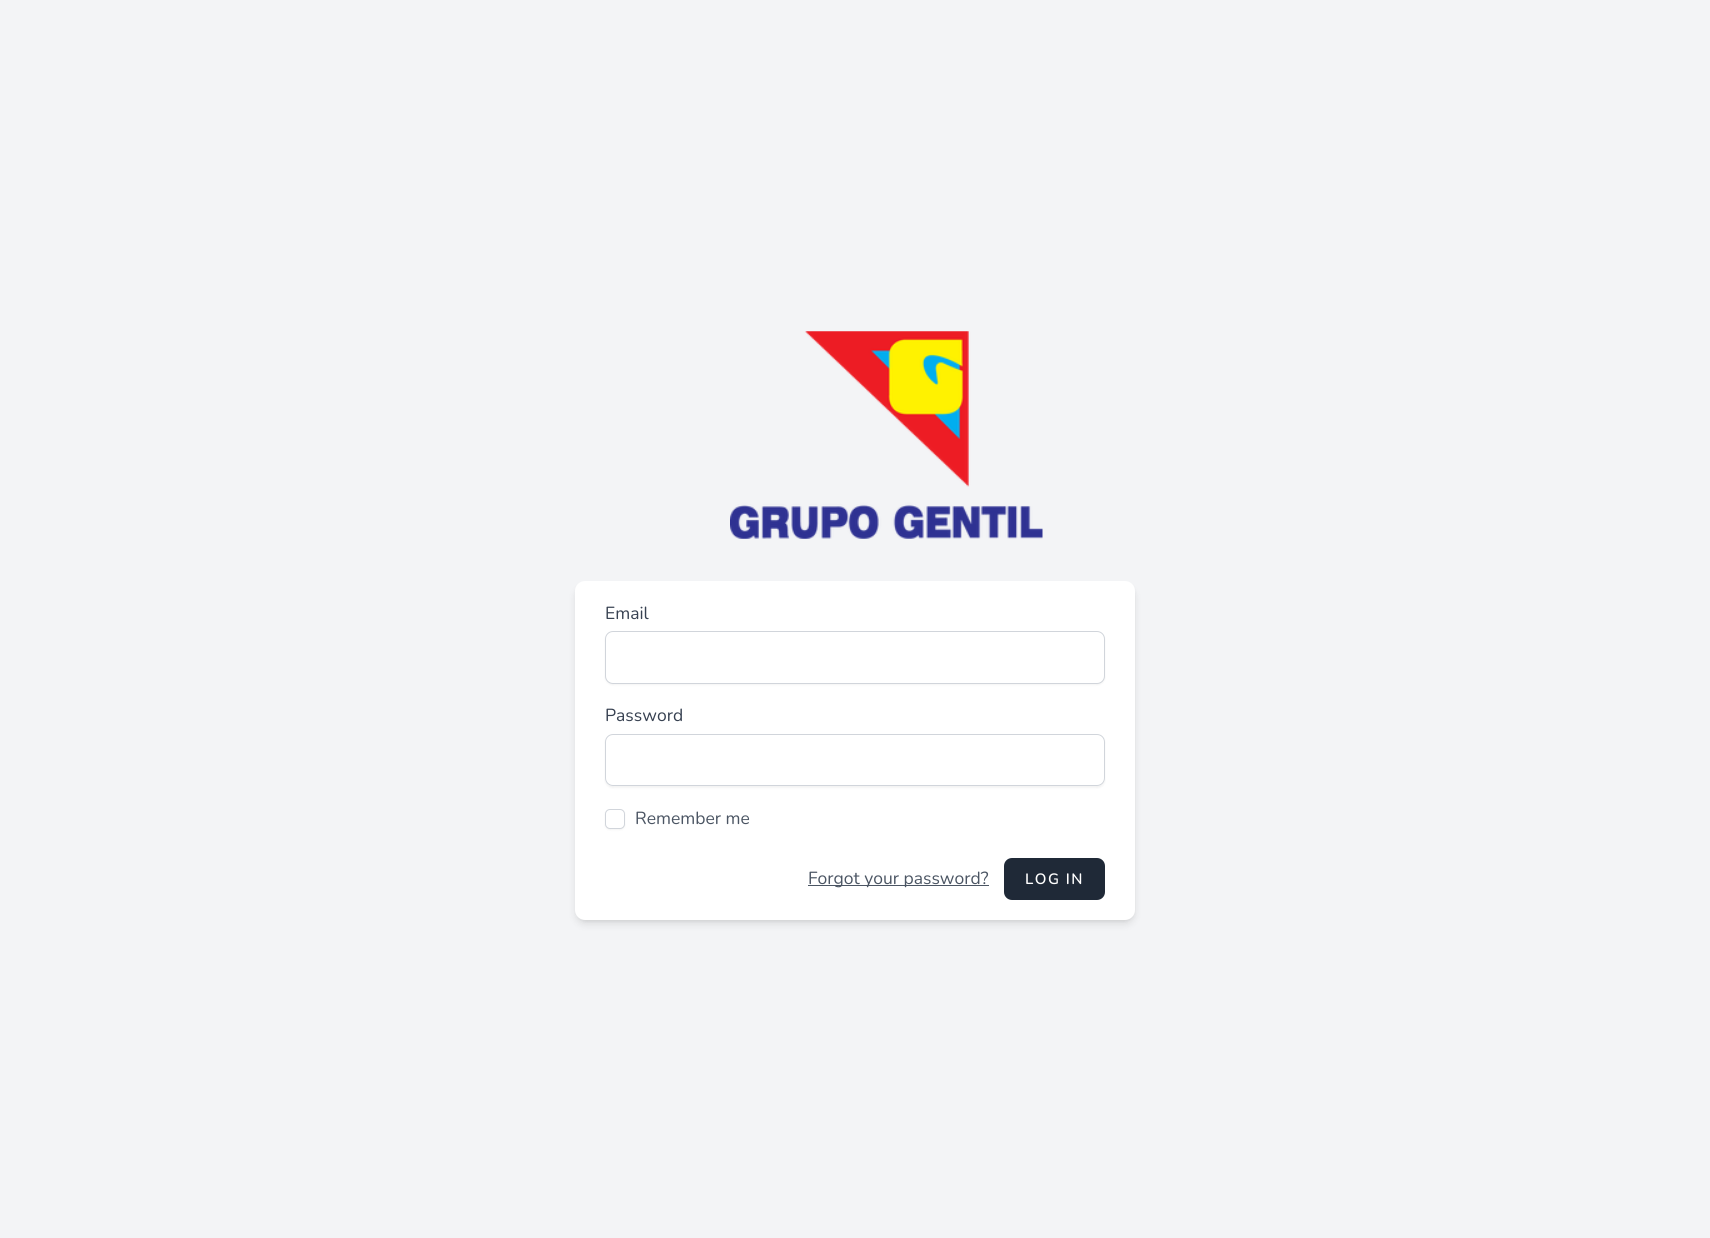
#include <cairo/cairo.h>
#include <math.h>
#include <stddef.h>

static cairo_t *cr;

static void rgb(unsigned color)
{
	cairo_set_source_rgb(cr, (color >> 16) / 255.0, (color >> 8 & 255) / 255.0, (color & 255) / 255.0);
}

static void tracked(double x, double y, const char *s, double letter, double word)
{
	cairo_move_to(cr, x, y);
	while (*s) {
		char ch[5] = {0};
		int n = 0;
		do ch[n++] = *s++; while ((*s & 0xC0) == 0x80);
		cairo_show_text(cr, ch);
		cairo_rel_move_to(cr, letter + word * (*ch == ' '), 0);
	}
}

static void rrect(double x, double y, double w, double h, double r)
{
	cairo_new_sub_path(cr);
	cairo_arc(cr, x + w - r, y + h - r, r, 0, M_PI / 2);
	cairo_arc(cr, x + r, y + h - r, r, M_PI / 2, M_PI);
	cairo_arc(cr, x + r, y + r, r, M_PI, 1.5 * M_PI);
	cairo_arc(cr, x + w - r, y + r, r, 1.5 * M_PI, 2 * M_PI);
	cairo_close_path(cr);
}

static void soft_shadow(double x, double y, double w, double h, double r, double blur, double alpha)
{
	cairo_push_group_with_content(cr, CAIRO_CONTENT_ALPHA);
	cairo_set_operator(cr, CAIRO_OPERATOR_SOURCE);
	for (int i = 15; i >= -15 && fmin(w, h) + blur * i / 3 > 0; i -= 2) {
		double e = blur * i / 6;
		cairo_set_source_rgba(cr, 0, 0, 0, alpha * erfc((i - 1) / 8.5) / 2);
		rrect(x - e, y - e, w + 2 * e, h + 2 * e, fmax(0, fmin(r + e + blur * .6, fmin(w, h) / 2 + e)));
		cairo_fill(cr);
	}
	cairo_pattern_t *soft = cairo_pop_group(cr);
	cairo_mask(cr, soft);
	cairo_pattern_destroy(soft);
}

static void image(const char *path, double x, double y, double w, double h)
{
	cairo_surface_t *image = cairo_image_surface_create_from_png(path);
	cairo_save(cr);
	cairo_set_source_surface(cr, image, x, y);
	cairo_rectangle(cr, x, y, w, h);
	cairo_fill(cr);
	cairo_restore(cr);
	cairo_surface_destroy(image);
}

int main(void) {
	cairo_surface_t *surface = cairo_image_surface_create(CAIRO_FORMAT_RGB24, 1710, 1238);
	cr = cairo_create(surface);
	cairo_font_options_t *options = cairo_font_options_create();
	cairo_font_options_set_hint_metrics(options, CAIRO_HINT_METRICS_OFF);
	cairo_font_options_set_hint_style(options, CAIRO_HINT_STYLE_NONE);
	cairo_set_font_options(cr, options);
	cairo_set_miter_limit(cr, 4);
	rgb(0xf3f4f6);
	cairo_paint(cr);
	image("img/1.png", 730, 331, 313, 208);
	rgb(0x000000);
	soft_shadow(578, 586, 555, 334, 8, 2.5, 0.1);
	soft_shadow(576, 588, 558, 336, 9, 4, 0.1);
	rgb(0xffffff);
	rrect(575, 581, 560, 339, 10);
	cairo_fill(cr);
	rgb(0x000000);
	soft_shadow(605, 633, 500, 52, 8, 1, 0.05);
	rgb(0xffffff);
	rrect(605.5, 631.5, 499, 52, 7.5);
	cairo_fill_preserve(cr);
	rgb(0xd1d5db);
	cairo_set_line_width(cr, 1);
	cairo_stroke(cr);
	cairo_save(cr);
	cairo_set_fill_rule(cr, CAIRO_FILL_RULE_EVEN_ODD);
	cairo_new_path(cr);
	cairo_move_to(cr, 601, 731);
	cairo_line_to(cr, 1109, 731);
	cairo_line_to(cr, 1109, 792);
	cairo_line_to(cr, 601, 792);
	cairo_close_path(cr);
	cairo_move_to(cr, 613, 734);
	cairo_line_to(cr, 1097, 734);
	cairo_curve_to(cr, 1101.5, 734, 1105, 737.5, 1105, 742);
	cairo_line_to(cr, 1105, 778);
	cairo_curve_to(cr, 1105, 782.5, 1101.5, 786, 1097, 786);
	cairo_line_to(cr, 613, 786);
	cairo_curve_to(cr, 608.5, 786, 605, 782.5, 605, 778);
	cairo_line_to(cr, 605, 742);
	cairo_curve_to(cr, 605, 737.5, 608.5, 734, 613, 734);
	cairo_close_path(cr);
	cairo_clip(cr);
	rgb(0x000000);
	soft_shadow(605, 735, 500, 53, 8, 1, 0.05);
	cairo_restore(cr);
	rrect(605.5, 734.5, 499, 51, 7.5);
	cairo_stroke(cr);
	rgb(0x000000);
	soft_shadow(605, 810, 20, 20, 5, 1, 0.05);
	rgb(0xffffff);
	rrect(605.5, 809.5, 19, 19, 4.5);
	cairo_fill_preserve(cr);
	rgb(0xd1d5db);
	cairo_stroke(cr);
	rgb(0x4b5563);
	cairo_rectangle(cr, 808, 885, 181, 1);
	cairo_fill(cr);
	rgb(0x1f2937);
	rrect(1004, 858, 101, 42, 8);
	cairo_fill(cr);
	cairo_select_font_face(cr, "Nunito", CAIRO_FONT_SLANT_NORMAL, CAIRO_FONT_WEIGHT_NORMAL);
	cairo_set_font_size(cr, 17.5);
	rgb(0x374151);
	cairo_move_to(cr, 605, 619);
	cairo_show_text(cr, "Email");
	cairo_move_to(cr, 605, 721);
	cairo_show_text(cr, "Password");
	rgb(0x4b5563);
	cairo_move_to(cr, 635, 824);
	cairo_show_text(cr, "Remember me");
	cairo_move_to(cr, 808, 884);
	cairo_show_text(cr, "Forgot your password?");
	cairo_select_font_face(cr, "Nunito SemiBold", CAIRO_FONT_SLANT_NORMAL, CAIRO_FONT_WEIGHT_NORMAL);
	cairo_set_font_size(cr, 15);
	rgb(0xffffff);
	tracked(1025, 884, "LOG IN", 1.5, 0);
	cairo_surface_write_to_png(surface, "page.png");
	cairo_font_options_destroy(options);
	cairo_destroy(cr);
	cairo_surface_destroy(surface);
	return 0;
}
